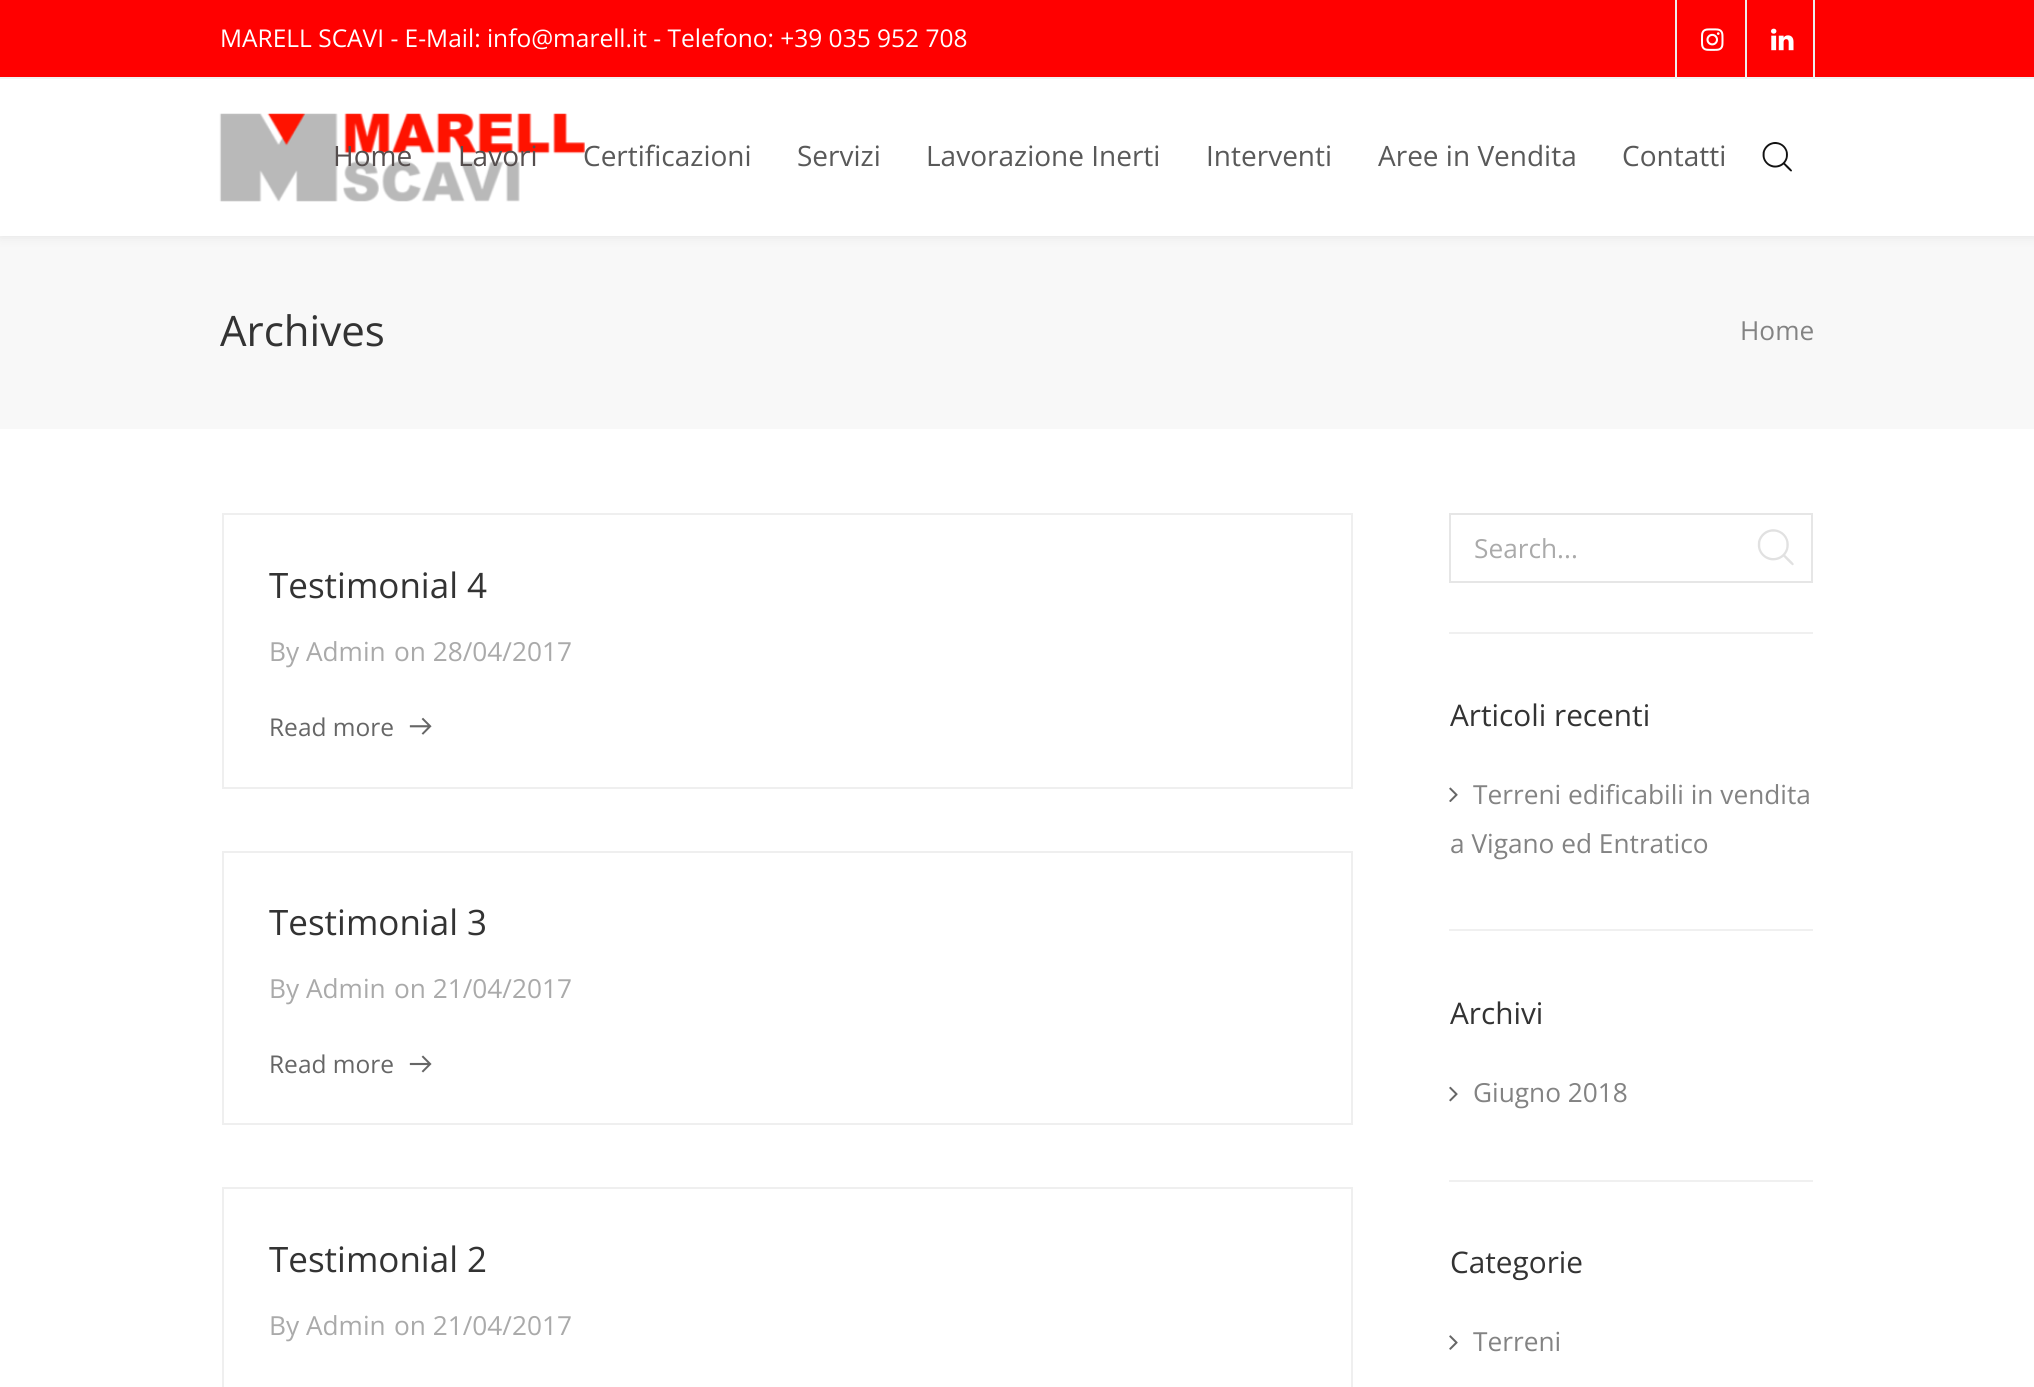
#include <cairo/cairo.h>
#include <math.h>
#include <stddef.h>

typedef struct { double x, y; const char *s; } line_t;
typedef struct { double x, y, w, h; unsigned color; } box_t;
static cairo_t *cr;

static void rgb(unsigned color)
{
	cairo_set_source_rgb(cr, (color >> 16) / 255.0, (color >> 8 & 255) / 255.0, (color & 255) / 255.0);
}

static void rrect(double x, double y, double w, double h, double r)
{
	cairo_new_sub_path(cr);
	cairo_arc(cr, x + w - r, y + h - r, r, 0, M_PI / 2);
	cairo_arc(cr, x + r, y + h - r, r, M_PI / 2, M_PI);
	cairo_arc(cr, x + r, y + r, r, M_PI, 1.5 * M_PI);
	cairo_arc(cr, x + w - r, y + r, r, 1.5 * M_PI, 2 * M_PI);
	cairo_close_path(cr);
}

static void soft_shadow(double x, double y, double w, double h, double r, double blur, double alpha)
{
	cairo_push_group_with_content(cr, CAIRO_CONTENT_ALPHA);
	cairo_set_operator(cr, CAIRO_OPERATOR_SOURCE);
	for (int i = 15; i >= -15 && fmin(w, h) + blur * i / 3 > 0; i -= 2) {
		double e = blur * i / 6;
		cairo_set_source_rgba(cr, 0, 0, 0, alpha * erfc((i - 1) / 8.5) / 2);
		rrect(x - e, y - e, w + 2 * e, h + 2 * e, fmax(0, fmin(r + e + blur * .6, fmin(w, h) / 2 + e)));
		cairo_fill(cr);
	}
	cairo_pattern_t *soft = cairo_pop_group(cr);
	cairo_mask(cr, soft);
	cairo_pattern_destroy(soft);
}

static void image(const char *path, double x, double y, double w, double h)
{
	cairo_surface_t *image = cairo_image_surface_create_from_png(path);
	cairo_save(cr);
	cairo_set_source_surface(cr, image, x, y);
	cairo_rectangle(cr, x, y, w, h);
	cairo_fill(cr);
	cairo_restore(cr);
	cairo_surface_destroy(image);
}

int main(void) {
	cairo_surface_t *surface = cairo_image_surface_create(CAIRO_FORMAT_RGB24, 2034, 1387);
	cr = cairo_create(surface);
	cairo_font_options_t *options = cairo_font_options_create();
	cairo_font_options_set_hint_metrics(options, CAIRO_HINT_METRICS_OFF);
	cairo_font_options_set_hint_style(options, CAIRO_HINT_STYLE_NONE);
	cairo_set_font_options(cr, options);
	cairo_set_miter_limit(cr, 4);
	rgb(0xffffff);
	cairo_paint(cr);
	rgb(0xf8f8f8);
	cairo_rectangle(cr, 0, 236, 2034, 193);
	cairo_fill(cr);
	rgb(0x000000);
	soft_shadow(0, 0, 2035, 236, 0, 6, 0.09);
	{
		static const box_t items[] = {
			{0, 0, 2034, 77, 0xff0000},
			{0, 77, 2034, 2, 0xf3f3f3},
			{1675, 0, 2, 79, 0xeeeeee},
		};
		for (size_t i = 0; i < sizeof items / sizeof *items; i++) {
			rgb(items[i].color);
			cairo_rectangle(cr, items[i].x, items[i].y, items[i].w, items[i].h);
			cairo_fill(cr);
		}
	}
	image("img/1.png", 1701, 28, 23, 23);
	cairo_rectangle(cr, 1813, 0, 2, 79);
	cairo_fill(cr);
	cairo_rectangle(cr, 1745, 0, 2, 79);
	cairo_fill(cr);
	image("img/2.png", 1771, 28, 23, 23);
	rgb(0xffffff);
	cairo_rectangle(cr, 0, 79, 2034, 157);
	cairo_fill(cr);
	image("img/3.png", 219, 113, 366, 89);
	image("img/4.png", 1762, 142, 30, 30);
	cairo_rectangle(cr, 223, 514, 1129, 274);
	rgb(0xefefef);
	cairo_stroke(cr);
	image("img/5.png", 409, 717, 23, 18);
	cairo_rectangle(cr, 223, 852, 1129, 272);
	cairo_stroke(cr);
	image("img/6.png", 409, 1055, 23, 18);
	cairo_rectangle(cr, 223, 1188, 1129, 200);
	cairo_stroke(cr);
	rgb(0xf0f0f0);
	cairo_rectangle(cr, 1449, 632, 364, 2);
	cairo_fill(cr);
	cairo_rectangle(cr, 1450, 514, 362, 68);
	rgb(0xe6e6e6);
	cairo_stroke(cr);
	image("img/7.png", 1757, 529, 37, 37);
	rgb(0xf0f0f0);
	cairo_rectangle(cr, 1449, 929, 364, 2);
	cairo_fill(cr);
	image("img/8.png", 1449, 787, 9, 15);
	cairo_rectangle(cr, 1449, 1180, 364, 2);
	cairo_fill(cr);
	image("img/9.png", 1449, 1086, 9, 16);
	image("img/10.png", 1449, 1335, 9, 15);
	cairo_select_font_face(cr, "Open Sans", CAIRO_FONT_SLANT_NORMAL, CAIRO_FONT_WEIGHT_NORMAL);
	cairo_set_font_size(cr, 24.5);
	rgb(0xffffff);
	cairo_move_to(cr, 220, 47);
	cairo_show_text(cr, "MARELL SCAVI - E-Mail: info@marell.it - Telefono: +39 035 952 708");
	cairo_set_font_size(cr, 28);
	rgb(0x554e4e);
	cairo_move_to(cr, 333, 166);
	cairo_show_text(cr, "Home");
	cairo_move_to(cr, 458, 166);
	cairo_show_text(cr, "Lavori");
	rgb(0x595959);
	{
		static const line_t items[] = {
			{583, 166, "Certificazioni"},
			{797, 166, "Servizi"},
			{926, 166, "Lavorazione Inerti"},
			{1206, 166, "Interventi"},
			{1378, 166, "Aree in Vendita"},
			{1622, 166, "Contatti"},
		};
		for (size_t i = 0; i < sizeof items / sizeof *items; i++) {
			cairo_move_to(cr, items[i].x, items[i].y);
			cairo_show_text(cr, items[i].s);
		}
	}
	cairo_set_font_size(cr, 42);
	rgb(0x333333);
	cairo_move_to(cr, 220, 346);
	cairo_show_text(cr, "Archives");
	cairo_set_font_size(cr, 26.25);
	rgb(0x838383);
	cairo_move_to(cr, 1740, 340);
	cairo_show_text(cr, "Home");
	cairo_set_font_size(cr, 35);
	rgb(0x333333);
	cairo_move_to(cr, 269, 598);
	cairo_show_text(cr, "Testimonial 4");
	cairo_set_font_size(cr, 26.25);
	rgb(0xaaaaaa);
	cairo_move_to(cr, 269, 661);
	cairo_show_text(cr, "By Admin");
	cairo_move_to(cr, 394, 661);
	cairo_show_text(cr, "on 28/04/2017");
	cairo_set_font_size(cr, 24.5);
	rgb(0x666666);
	cairo_move_to(cr, 269, 736);
	cairo_show_text(cr, "Read more");
	cairo_set_font_size(cr, 35);
	rgb(0x333333);
	cairo_move_to(cr, 269, 935);
	cairo_show_text(cr, "Testimonial 3");
	cairo_set_font_size(cr, 26.25);
	rgb(0xaaaaaa);
	cairo_move_to(cr, 269, 998);
	cairo_show_text(cr, "By Admin");
	cairo_move_to(cr, 394, 998);
	cairo_show_text(cr, "on 21/04/2017");
	cairo_set_font_size(cr, 24.5);
	rgb(0x666666);
	cairo_move_to(cr, 269, 1073);
	cairo_show_text(cr, "Read more");
	cairo_set_font_size(cr, 35);
	rgb(0x333333);
	cairo_move_to(cr, 269, 1272);
	cairo_show_text(cr, "Testimonial 2");
	cairo_set_font_size(cr, 26.25);
	rgb(0xaaaaaa);
	{
		static const line_t items[] = {
			{269, 1335, "By Admin"},
			{394, 1335, "on 21/04/2017"},
			{1474, 558, "Search..."},
		};
		for (size_t i = 0; i < sizeof items / sizeof *items; i++) {
			cairo_move_to(cr, items[i].x, items[i].y);
			cairo_show_text(cr, items[i].s);
		}
	}
	cairo_set_font_size(cr, 29.75);
	rgb(0x333333);
	cairo_move_to(cr, 1450, 726);
	cairo_show_text(cr, "Articoli recenti");
	cairo_set_font_size(cr, 26.25);
	rgb(0x838383);
	cairo_move_to(cr, 1473, 804);
	cairo_show_text(cr, "Terreni edificabili in vendita");
	cairo_move_to(cr, 1450, 853);
	cairo_show_text(cr, "a Vigano ed Entratico");
	cairo_set_font_size(cr, 29.75);
	rgb(0x333333);
	cairo_move_to(cr, 1450, 1024);
	cairo_show_text(cr, "Archivi");
	cairo_set_font_size(cr, 26.25);
	rgb(0x838383);
	cairo_move_to(cr, 1473, 1102);
	cairo_show_text(cr, "Giugno 2018");
	cairo_set_font_size(cr, 29.75);
	rgb(0x333333);
	cairo_move_to(cr, 1450, 1273);
	cairo_show_text(cr, "Categorie");
	cairo_set_font_size(cr, 26.25);
	rgb(0x838383);
	cairo_move_to(cr, 1473, 1351);
	cairo_show_text(cr, "Terreni");
	cairo_surface_write_to_png(surface, "page.png");
	cairo_font_options_destroy(options);
	cairo_destroy(cr);
	cairo_surface_destroy(surface);
	return 0;
}
